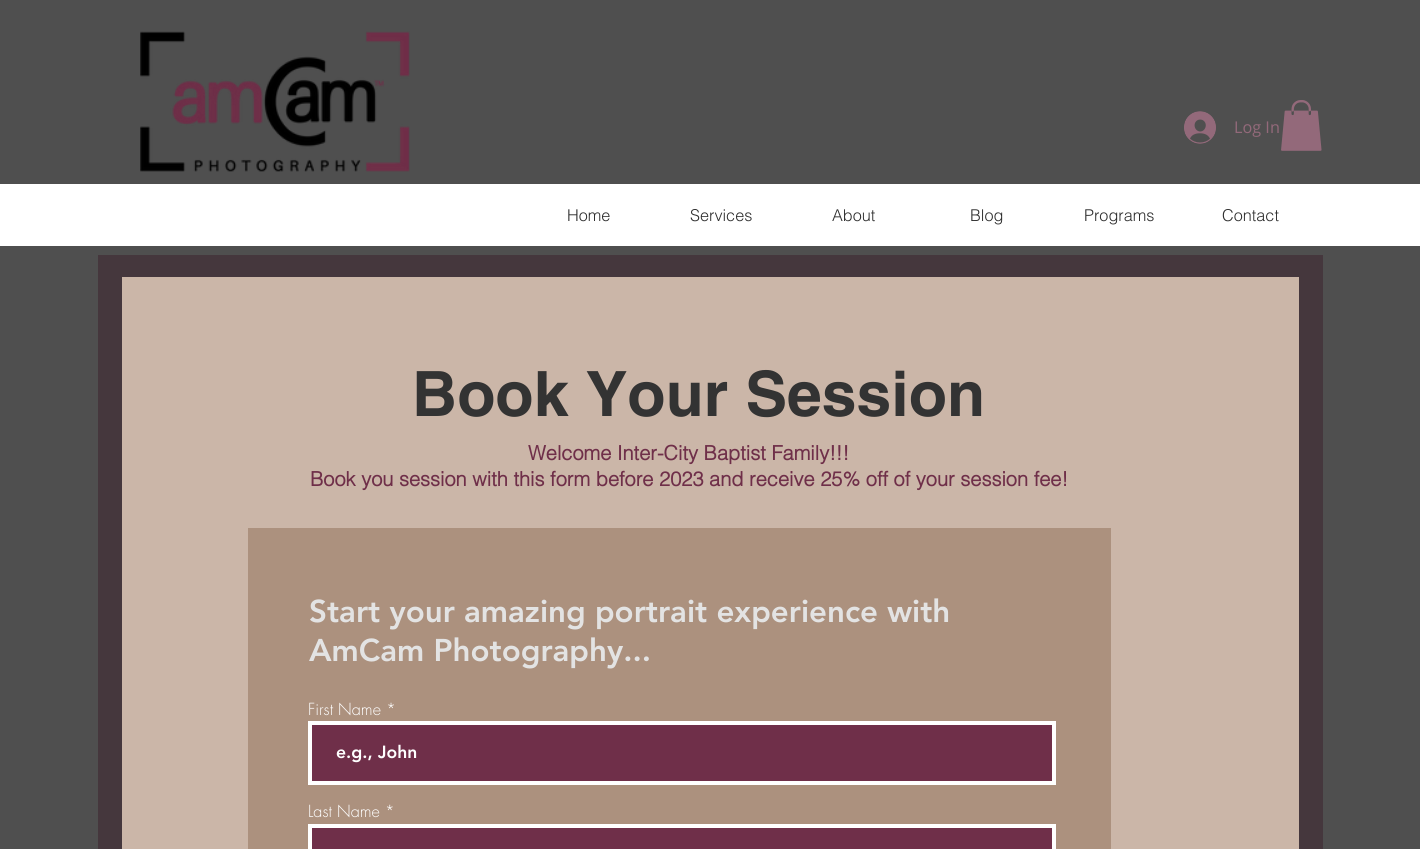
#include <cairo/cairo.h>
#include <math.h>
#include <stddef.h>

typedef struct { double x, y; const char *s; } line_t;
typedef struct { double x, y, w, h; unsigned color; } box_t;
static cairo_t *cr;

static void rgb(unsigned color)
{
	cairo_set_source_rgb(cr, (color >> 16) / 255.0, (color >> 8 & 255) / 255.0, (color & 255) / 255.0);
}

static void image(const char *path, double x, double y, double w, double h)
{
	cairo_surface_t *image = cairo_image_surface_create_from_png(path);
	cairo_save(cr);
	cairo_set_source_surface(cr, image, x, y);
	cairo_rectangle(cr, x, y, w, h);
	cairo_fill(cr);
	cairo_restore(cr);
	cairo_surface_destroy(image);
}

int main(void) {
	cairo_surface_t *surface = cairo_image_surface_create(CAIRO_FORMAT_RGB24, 1420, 849);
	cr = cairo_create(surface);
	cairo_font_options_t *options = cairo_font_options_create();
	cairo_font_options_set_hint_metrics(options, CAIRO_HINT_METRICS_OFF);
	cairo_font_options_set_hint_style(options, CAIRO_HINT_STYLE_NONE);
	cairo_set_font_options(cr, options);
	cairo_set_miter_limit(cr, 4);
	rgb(0x4f4f4f);
	cairo_paint(cr);
	image("img/1.png", 140, 31, 270, 141);
	image("img/2.png", 1184, 111, 32, 33);
	image("img/3.png", 1281, 100, 41, 51);
	{
		static const box_t items[] = {
			{0, 184, 1420, 62, 0xffffff},
			{98, 255, 1225, 594, 0x45373d},
			{122, 277, 1177, 572, 0xcbb6a8},
			{248, 528, 863, 321, 0xac917e},
		};
		for (size_t i = 0; i < sizeof items / sizeof *items; i++) {
			rgb(items[i].color);
			cairo_rectangle(cr, items[i].x, items[i].y, items[i].w, items[i].h);
			cairo_fill(cr);
		}
	}
	rgb(0x6f2f49);
	cairo_rectangle(cr, 310, 723, 744, 60);
	cairo_fill_preserve(cr);
	rgb(0xffffff);
	cairo_set_line_width(cr, 4);
	cairo_stroke(cr);
	rgb(0x6f2f49);
	cairo_rectangle(cr, 310, 826, 744, 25);
	cairo_fill_preserve(cr);
	rgb(0xffffff);
	cairo_stroke(cr);
	cairo_select_font_face(cr, "Open Sans", CAIRO_FONT_SLANT_NORMAL, CAIRO_FONT_WEIGHT_NORMAL);
	cairo_set_font_size(cr, 16.25);
	rgb(0x93697a);
	cairo_move_to(cr, 1234, 133);
	cairo_show_text(cr, "Log In");
	cairo_select_font_face(cr, "helvetica Light", CAIRO_FONT_SLANT_NORMAL, CAIRO_FONT_WEIGHT_NORMAL);
	rgb(0x2d2d2d);
	{
		static const line_t items[] = {
			{567, 221, "Home"},
			{690, 221, "Services"},
			{832, 221, "About"},
			{970, 221, "Blog"},
			{1084, 221, "Programs"},
			{1222, 221, "Contact"},
		};
		for (size_t i = 0; i < sizeof items / sizeof *items; i++) {
			cairo_move_to(cr, items[i].x, items[i].y);
			cairo_show_text(cr, items[i].s);
		}
	}
	cairo_select_font_face(cr, "helvetica", CAIRO_FONT_SLANT_NORMAL, CAIRO_FONT_WEIGHT_BOLD);
	cairo_set_font_size(cr, 62.5);
	rgb(0x333333);
	cairo_move_to(cr, 412, 416);
	cairo_show_text(cr, "Book Your Session");
	cairo_select_font_face(cr, "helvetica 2", CAIRO_FONT_SLANT_NORMAL, CAIRO_FONT_WEIGHT_BOLD);
	cairo_set_font_size(cr, 20);
	rgb(0x6f2f49);
	cairo_move_to(cr, 528, 460);
	cairo_show_text(cr, "Welcome Inter-City Baptist Family!!!");
	cairo_move_to(cr, 310, 486);
	cairo_show_text(cr, "Book you session with this form before 2023 and receive 25% off of your session fee!");
	cairo_select_font_face(cr, "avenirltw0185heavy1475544 Black", CAIRO_FONT_SLANT_NORMAL, CAIRO_FONT_WEIGHT_NORMAL);
	cairo_set_font_size(cr, 31.25);
	rgb(0xe3e3e3);
	cairo_move_to(cr, 309, 622);
	cairo_show_text(cr, "Start your amazing portrait experience with");
	cairo_move_to(cr, 309, 661);
	cairo_show_text(cr, "AmCam Photography...");
	cairo_select_font_face(cr, "futura Light", CAIRO_FONT_SLANT_NORMAL, CAIRO_FONT_WEIGHT_NORMAL);
	cairo_set_font_size(cr, 16.25);
	rgb(0xffffff);
	cairo_move_to(cr, 308, 715);
	cairo_show_text(cr, "First Name *");
	cairo_select_font_face(cr, "avenirltw0185heavy1475544 Black", CAIRO_FONT_SLANT_NORMAL, CAIRO_FONT_WEIGHT_NORMAL);
	cairo_set_font_size(cr, 17.5);
	cairo_move_to(cr, 336, 758);
	cairo_show_text(cr, "e.g., John");
	cairo_select_font_face(cr, "futura Light", CAIRO_FONT_SLANT_NORMAL, CAIRO_FONT_WEIGHT_NORMAL);
	cairo_set_font_size(cr, 16.25);
	cairo_move_to(cr, 308, 817);
	cairo_show_text(cr, "Last Name *");
	cairo_surface_write_to_png(surface, "page.png");
	cairo_font_options_destroy(options);
	cairo_destroy(cr);
	cairo_surface_destroy(surface);
	return 0;
}
